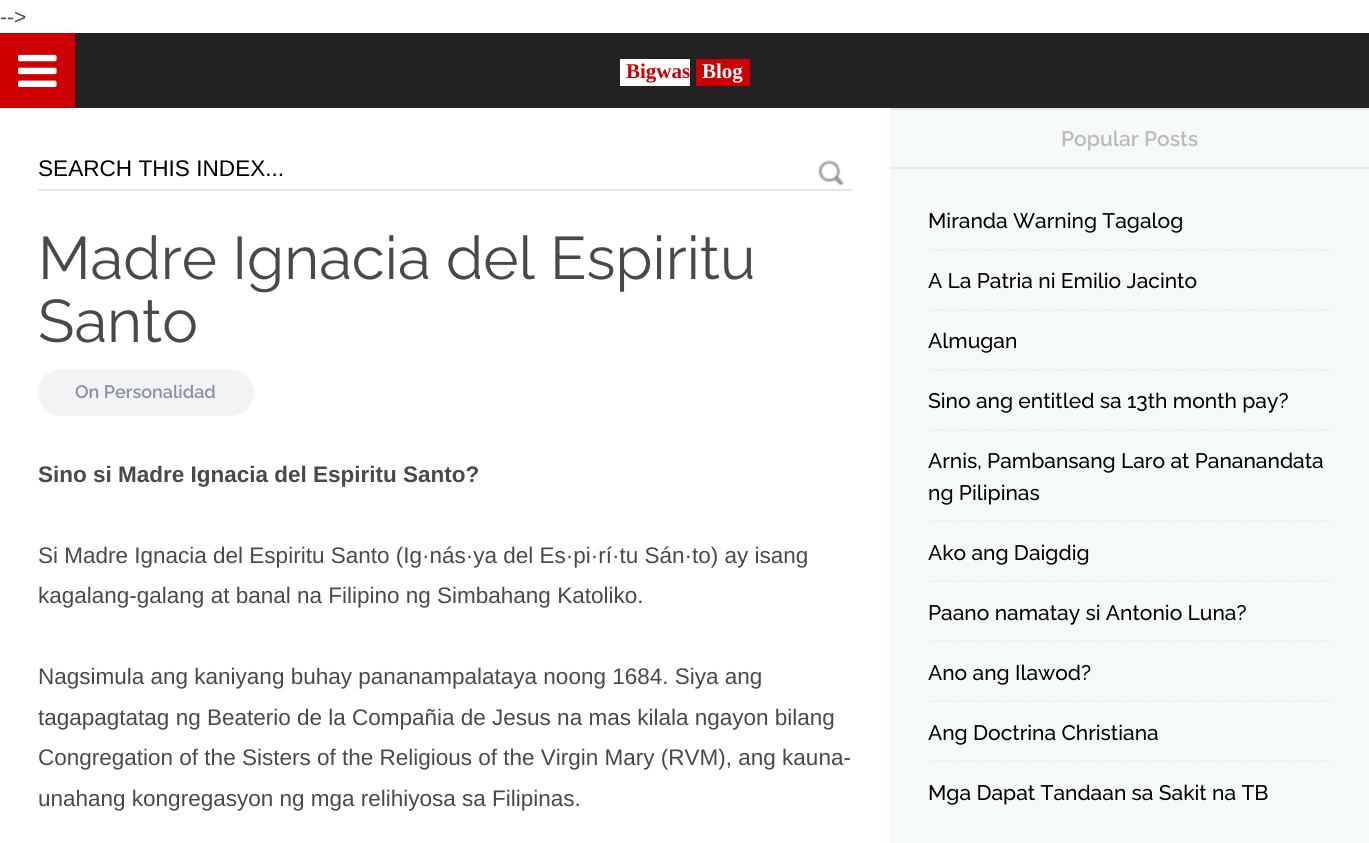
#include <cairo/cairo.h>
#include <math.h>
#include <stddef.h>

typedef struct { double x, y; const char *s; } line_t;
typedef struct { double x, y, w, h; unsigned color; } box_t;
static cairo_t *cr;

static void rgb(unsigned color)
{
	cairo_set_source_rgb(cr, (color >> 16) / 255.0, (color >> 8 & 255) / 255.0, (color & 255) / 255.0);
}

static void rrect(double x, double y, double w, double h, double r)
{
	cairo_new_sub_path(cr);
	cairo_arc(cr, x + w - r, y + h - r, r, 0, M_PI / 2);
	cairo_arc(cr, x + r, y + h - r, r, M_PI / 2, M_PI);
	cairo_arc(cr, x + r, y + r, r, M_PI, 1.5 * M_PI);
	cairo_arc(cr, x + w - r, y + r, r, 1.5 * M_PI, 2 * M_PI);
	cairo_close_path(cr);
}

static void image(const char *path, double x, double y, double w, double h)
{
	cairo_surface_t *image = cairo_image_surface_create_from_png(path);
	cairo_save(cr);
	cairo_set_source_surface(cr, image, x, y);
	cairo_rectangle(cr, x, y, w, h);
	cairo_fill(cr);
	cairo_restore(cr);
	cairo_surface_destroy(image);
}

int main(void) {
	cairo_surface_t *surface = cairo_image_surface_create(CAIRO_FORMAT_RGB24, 1369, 843);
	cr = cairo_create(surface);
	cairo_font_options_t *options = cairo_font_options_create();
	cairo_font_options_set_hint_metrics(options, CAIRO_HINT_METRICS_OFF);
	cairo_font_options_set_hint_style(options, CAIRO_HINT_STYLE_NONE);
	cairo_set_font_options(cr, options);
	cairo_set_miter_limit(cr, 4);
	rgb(0xffffff);
	cairo_paint(cr);
	{
		static const box_t items[] = {
			{890, 110, 479, 733, 0xf6f9fa},
			{75, 33, 1294, 75, 0x222222},
			{0, 33, 75, 75, 0xcc0000},
		};
		for (size_t i = 0; i < sizeof items / sizeof *items; i++) {
			rgb(items[i].color);
			cairo_rectangle(cr, items[i].x, items[i].y, items[i].w, items[i].h);
			cairo_fill(cr);
		}
	}
	image("img/1.png", 18, 54, 39, 33);
	{
		static const box_t items[] = {
			{620, 59, 70, 27, 0xffffff},
			{696, 59, 54, 27, 0xcc0000},
			{38, 189, 814, 2, 0xe7e7e7},
		};
		for (size_t i = 0; i < sizeof items / sizeof *items; i++) {
			rgb(items[i].color);
			cairo_rectangle(cr, items[i].x, items[i].y, items[i].w, items[i].h);
			cairo_fill(cr);
		}
	}
	image("img/2.png", 818, 160, 26, 26);
	rgb(0xf1f3f4);
	rrect(38, 369, 216, 47, 23.5);
	cairo_fill(cr);
	rgb(0xe7e7e7);
	cairo_rectangle(cr, 890, 108, 479, 2);
	cairo_fill(cr);
	cairo_rectangle(cr, 890, 167, 479, 2);
	cairo_fill(cr);
	cairo_new_path(cr);
	cairo_move_to(cr, 927, 250);
	cairo_line_to(cr, 1332, 250);
	cairo_set_line_width(cr, 1.5);
	cairo_set_dash(cr, (double[]){1.5, 1.5}, 2, 0);
	cairo_stroke(cr);
	cairo_new_path(cr);
	cairo_move_to(cr, 927, 310);
	cairo_line_to(cr, 1332, 310);
	cairo_stroke(cr);
	cairo_new_path(cr);
	cairo_move_to(cr, 927, 370);
	cairo_line_to(cr, 1332, 370);
	cairo_stroke(cr);
	cairo_new_path(cr);
	cairo_move_to(cr, 927, 430);
	cairo_line_to(cr, 1332, 430);
	cairo_stroke(cr);
	cairo_new_path(cr);
	cairo_move_to(cr, 927, 521);
	cairo_line_to(cr, 1332, 521);
	cairo_stroke(cr);
	cairo_new_path(cr);
	cairo_move_to(cr, 927, 581);
	cairo_line_to(cr, 1332, 581);
	cairo_stroke(cr);
	cairo_new_path(cr);
	cairo_move_to(cr, 927, 641);
	cairo_line_to(cr, 1332, 641);
	cairo_stroke(cr);
	cairo_new_path(cr);
	cairo_move_to(cr, 927, 701);
	cairo_line_to(cr, 1332, 701);
	cairo_stroke(cr);
	cairo_new_path(cr);
	cairo_move_to(cr, 927, 761);
	cairo_line_to(cr, 1332, 761);
	cairo_stroke(cr);
	cairo_select_font_face(cr, "Liberation Sans", CAIRO_FONT_SLANT_NORMAL, CAIRO_FONT_WEIGHT_NORMAL);
	cairo_set_font_size(cr, 21);
	rgb(0x494949);
	cairo_move_to(cr, 0, 24);
	cairo_show_text(cr, "-->");
	cairo_select_font_face(cr, "Liberation Serif", CAIRO_FONT_SLANT_NORMAL, CAIRO_FONT_WEIGHT_BOLD);
	rgb(0xcc0000);
	cairo_move_to(cr, 626, 78);
	cairo_show_text(cr, "Bigwas");
	rgb(0xffffff);
	cairo_move_to(cr, 702, 78);
	cairo_show_text(cr, "Blog");
	cairo_select_font_face(cr, "Liberation Sans", CAIRO_FONT_SLANT_NORMAL, CAIRO_FONT_WEIGHT_NORMAL);
	cairo_set_font_size(cr, 22.6);
	rgb(0x000000);
	cairo_move_to(cr, 38, 176);
	cairo_show_text(cr, "SEARCH THIS INDEX...");
	cairo_select_font_face(cr, "Raleway", CAIRO_FONT_SLANT_NORMAL, CAIRO_FONT_WEIGHT_NORMAL);
	cairo_set_font_size(cr, 60);
	rgb(0x494949);
	cairo_move_to(cr, 38, 279);
	cairo_show_text(cr, "Madre Ignacia del Espiritu");
	cairo_move_to(cr, 38, 342);
	cairo_show_text(cr, "Santo");
	cairo_select_font_face(cr, "Raleway SemiBold", CAIRO_FONT_SLANT_NORMAL, CAIRO_FONT_WEIGHT_NORMAL);
	cairo_set_font_size(cr, 18);
	rgb(0x8890a7);
	cairo_move_to(cr, 75, 398);
	cairo_show_text(cr, "On Personalidad");
	cairo_select_font_face(cr, "Liberation Sans", CAIRO_FONT_SLANT_NORMAL, CAIRO_FONT_WEIGHT_BOLD);
	cairo_set_font_size(cr, 22.5);
	rgb(0x494949);
	cairo_move_to(cr, 38, 482);
	cairo_show_text(cr, "Sino si Madre Ignacia del Espiritu Santo?");
	cairo_select_font_face(cr, "Liberation Sans", CAIRO_FONT_SLANT_NORMAL, CAIRO_FONT_WEIGHT_NORMAL);
	{
		static const line_t items[] = {
			{38, 563, "Si Madre Ignacia del Espiritu Santo (Ig·nás·ya del Es·pi·rí·tu Sán·to) ay isang"},
			{38, 603, "kagalang-galang at banal na Filipino ng Simbahang Katoliko."},
			{38, 684, "Nagsimula ang kaniyang buhay pananampalataya noong 1684. Siya ang"},
			{38, 725, "tagapagtatag ng Beaterio de la Compañia de Jesus na mas kilala ngayon bilang"},
			{38, 765, "Congregation of the Sisters of the Religious of the Virgin Mary (RVM), ang kauna-"},
			{38, 806, "unahang kongregasyon ng mga relihiyosa sa Filipinas."},
		};
		for (size_t i = 0; i < sizeof items / sizeof *items; i++) {
			cairo_move_to(cr, items[i].x, items[i].y);
			cairo_show_text(cr, items[i].s);
		}
	}
	cairo_select_font_face(cr, "Raleway SemiBold", CAIRO_FONT_SLANT_NORMAL, CAIRO_FONT_WEIGHT_NORMAL);
	cairo_set_font_size(cr, 21);
	rgb(0xbbbbbb);
	cairo_move_to(cr, 1061, 146);
	cairo_show_text(cr, "Popular Posts");
	cairo_select_font_face(cr, "Raleway Medium", CAIRO_FONT_SLANT_NORMAL, CAIRO_FONT_WEIGHT_NORMAL);
	rgb(0x000000);
	{
		static const line_t items[] = {
			{928, 228, "Miranda Warning Tagalog"},
			{928, 288, "A La Patria ni Emilio Jacinto"},
			{928, 348, "Almugan"},
			{928, 408, "Sino ang entitled sa 13th month pay?"},
			{928, 468, "Arnis, Pambansang Laro at Pananandata"},
			{928, 500, "ng Pilipinas"},
			{928, 560, "Ako ang Daigdig"},
			{928, 620, "Paano namatay si Antonio Luna?"},
			{928, 680, "Ano ang Ilawod?"},
			{928, 740, "Ang Doctrina Christiana"},
			{928, 800, "Mga Dapat Tandaan sa Sakit na TB"},
		};
		for (size_t i = 0; i < sizeof items / sizeof *items; i++) {
			cairo_move_to(cr, items[i].x, items[i].y);
			cairo_show_text(cr, items[i].s);
		}
	}
	cairo_surface_write_to_png(surface, "page.png");
	cairo_font_options_destroy(options);
	cairo_destroy(cr);
	cairo_surface_destroy(surface);
	return 0;
}
